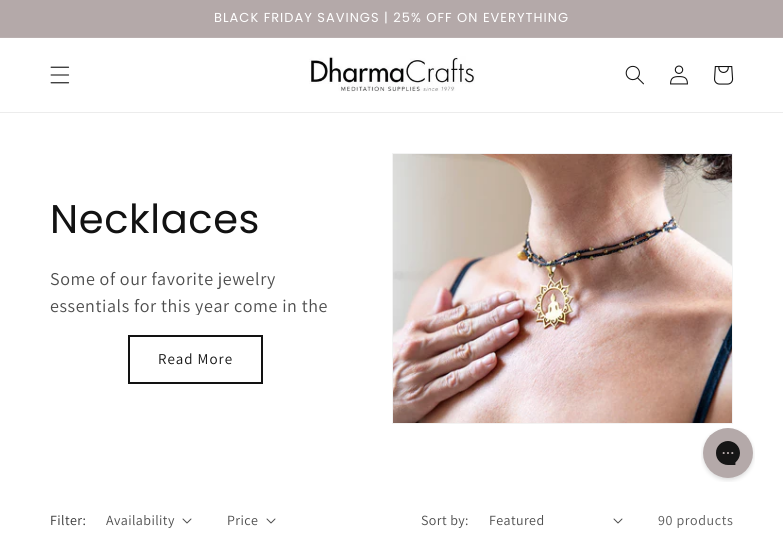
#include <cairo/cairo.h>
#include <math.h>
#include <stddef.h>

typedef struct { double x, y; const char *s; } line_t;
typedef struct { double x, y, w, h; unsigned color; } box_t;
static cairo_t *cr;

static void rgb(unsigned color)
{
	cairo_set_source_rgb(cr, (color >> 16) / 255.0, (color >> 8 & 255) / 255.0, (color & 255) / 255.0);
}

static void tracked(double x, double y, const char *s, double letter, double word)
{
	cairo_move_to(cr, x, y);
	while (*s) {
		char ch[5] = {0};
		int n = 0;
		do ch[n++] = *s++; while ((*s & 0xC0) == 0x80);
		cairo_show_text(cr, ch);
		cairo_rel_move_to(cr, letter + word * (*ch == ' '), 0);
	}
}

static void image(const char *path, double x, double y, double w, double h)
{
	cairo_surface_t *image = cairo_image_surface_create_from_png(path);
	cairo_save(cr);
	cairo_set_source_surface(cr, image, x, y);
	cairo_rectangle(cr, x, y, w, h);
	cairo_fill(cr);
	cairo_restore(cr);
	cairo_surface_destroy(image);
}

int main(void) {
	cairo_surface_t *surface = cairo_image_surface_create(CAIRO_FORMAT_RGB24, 783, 540);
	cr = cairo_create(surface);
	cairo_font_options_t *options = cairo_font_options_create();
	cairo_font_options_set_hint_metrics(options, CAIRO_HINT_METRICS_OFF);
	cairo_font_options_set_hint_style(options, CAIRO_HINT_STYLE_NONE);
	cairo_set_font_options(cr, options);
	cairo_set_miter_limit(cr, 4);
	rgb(0xffffff);
	cairo_paint(cr);
	{
		static const box_t items[] = {
			{0, 0, 783, 37, 0xb4a9a9},
			{0, 37, 783, 1, 0xbab0b0},
			{0, 112, 783, 1, 0xececec},
		};
		for (size_t i = 0; i < sizeof items / sizeof *items; i++) {
			rgb(items[i].color);
			cairo_rectangle(cr, items[i].x, items[i].y, items[i].w, items[i].h);
			cairo_fill(cr);
		}
	}
	image("img/1.png", 50, 66, 20, 18);
	image("img/2.png", 309, 56, 166, 36);
	image("img/3.png", 625, 65, 19, 20);
	image("img/4.png", 670, 65, 18, 20);
	image("img/5.png", 714, 66, 20, 19);
	cairo_rectangle(cr, 129, 336, 133, 47);
	rgb(0x121212);
	cairo_stroke(cr);
	cairo_rectangle(cr, 392.5, 153.5, 340, 270);
	rgb(0xf3f3f3);
	cairo_set_line_width(cr, 1);
	cairo_stroke(cr);
	image("img/6.png", 393, 154, 339, 269);
	image("img/7.png", 182, 518, 10, 6);
	image("img/7.png", 266, 518, 10, 6);
	image("img/7.png", 613, 518, 10, 6);
	image("img/8.png", 701, 428, 54, 54);
	cairo_select_font_face(cr, "Poppins", CAIRO_FONT_SLANT_NORMAL, CAIRO_FONT_WEIGHT_NORMAL);
	cairo_set_font_size(cr, 13);
	rgb(0xffffff);
	tracked(214, 22, "BLACK FRIDAY SAVINGS | 25% OFF ON EVERYTHING", 1, 0);
	cairo_set_font_size(cr, 40);
	rgb(0x121212);
	tracked(50, 233, "Necklaces", 0.6, 0);
	cairo_select_font_face(cr, "Assistant", CAIRO_FONT_SLANT_NORMAL, CAIRO_FONT_WEIGHT_NORMAL);
	cairo_set_font_size(cr, 18);
	rgb(0x4d4d4d);
	tracked(50, 285, "Some of our favorite jewelry", 0.6, 0);
	cairo_save(cr);
	cairo_rectangle(cr, 50, 265, 292, 50);
	cairo_clip(cr);
	tracked(50, 312, "essentials for this year come in the", 0.6, 0);
	cairo_restore(cr);
	cairo_set_font_size(cr, 15);
	rgb(0x121212);
	tracked(158, 364, "Read More", 1, 0);
	cairo_set_font_size(cr, 14);
	rgb(0x363636);
	tracked(50, 525, "Filter:", 0.4, 0);
	rgb(0x4d4d4d);
	{
		static const line_t items[] = {
			{106, 525, "Availability"},
			{227, 525, "Price"},
			{421, 525, "Sort by:"},
			{489, 525, "Featured"},
		};
		for (size_t i = 0; i < sizeof items / sizeof *items; i++) {
			tracked(items[i].x, items[i].y, items[i].s, 0.4, 0);
		}
	}
	rgb(0x595959);
	tracked(658, 525, "90 products", 0.6, 0);
	cairo_surface_write_to_png(surface, "page.png");
	cairo_font_options_destroy(options);
	cairo_destroy(cr);
	cairo_surface_destroy(surface);
	return 0;
}
